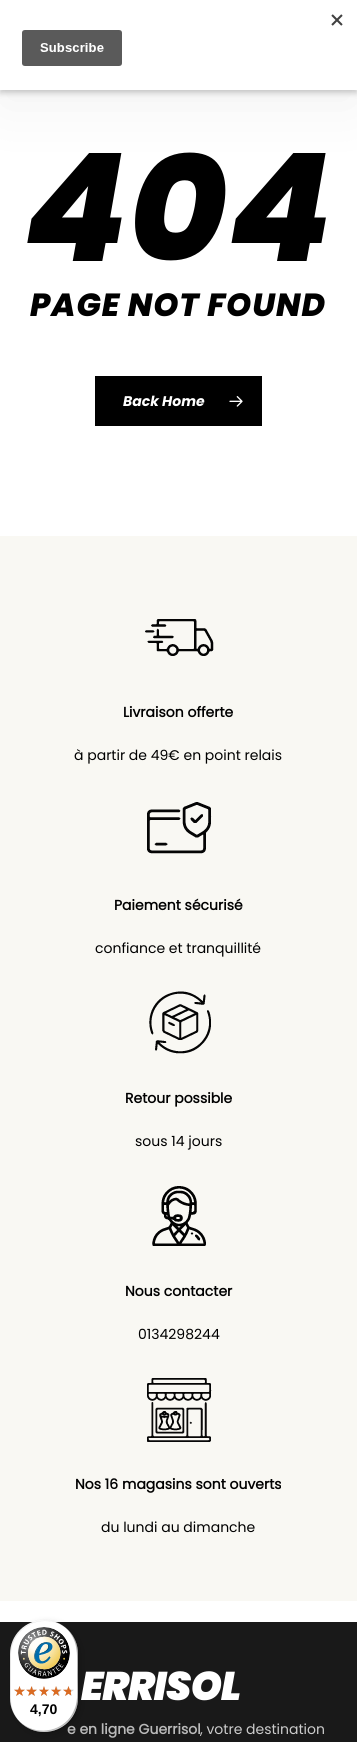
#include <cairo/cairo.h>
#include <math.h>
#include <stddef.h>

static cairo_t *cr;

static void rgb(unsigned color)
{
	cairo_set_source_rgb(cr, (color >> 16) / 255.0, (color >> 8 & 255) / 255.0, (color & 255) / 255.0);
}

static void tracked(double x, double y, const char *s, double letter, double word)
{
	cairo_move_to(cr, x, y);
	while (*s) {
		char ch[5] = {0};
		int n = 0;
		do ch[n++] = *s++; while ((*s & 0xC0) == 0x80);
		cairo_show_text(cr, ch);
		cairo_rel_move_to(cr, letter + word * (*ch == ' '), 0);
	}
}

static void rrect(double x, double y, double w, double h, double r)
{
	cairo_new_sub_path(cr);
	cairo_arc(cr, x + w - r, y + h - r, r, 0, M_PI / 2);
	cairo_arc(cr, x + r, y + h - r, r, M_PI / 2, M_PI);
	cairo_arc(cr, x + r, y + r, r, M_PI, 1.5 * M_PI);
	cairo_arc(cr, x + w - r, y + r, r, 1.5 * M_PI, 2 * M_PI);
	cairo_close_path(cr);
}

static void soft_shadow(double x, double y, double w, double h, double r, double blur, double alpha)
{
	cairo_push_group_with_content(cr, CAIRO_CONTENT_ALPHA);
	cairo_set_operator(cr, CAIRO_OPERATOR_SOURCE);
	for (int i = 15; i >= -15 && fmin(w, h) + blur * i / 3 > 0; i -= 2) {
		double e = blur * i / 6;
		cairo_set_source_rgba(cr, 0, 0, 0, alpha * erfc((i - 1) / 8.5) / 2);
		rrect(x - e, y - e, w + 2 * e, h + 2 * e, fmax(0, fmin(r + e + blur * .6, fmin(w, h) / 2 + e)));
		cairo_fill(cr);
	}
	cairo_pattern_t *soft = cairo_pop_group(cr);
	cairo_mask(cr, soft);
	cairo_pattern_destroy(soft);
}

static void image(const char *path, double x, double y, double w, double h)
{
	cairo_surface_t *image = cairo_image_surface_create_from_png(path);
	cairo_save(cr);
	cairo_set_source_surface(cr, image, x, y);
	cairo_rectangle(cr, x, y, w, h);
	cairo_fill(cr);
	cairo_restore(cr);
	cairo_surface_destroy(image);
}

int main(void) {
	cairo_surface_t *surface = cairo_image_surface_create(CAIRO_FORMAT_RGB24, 357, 1742);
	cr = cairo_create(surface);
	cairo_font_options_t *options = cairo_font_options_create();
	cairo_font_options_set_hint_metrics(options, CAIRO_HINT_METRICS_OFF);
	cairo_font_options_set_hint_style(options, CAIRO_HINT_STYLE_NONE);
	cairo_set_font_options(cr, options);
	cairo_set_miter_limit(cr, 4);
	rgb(0xffffff);
	cairo_paint(cr);
	rgb(0x000000);
	soft_shadow(0, 3, 357, 90, 0, 3, 0.2);
	soft_shadow(0, 15, 357, 92, 0, 30, 0.05);
	rgb(0xffffff);
	cairo_rectangle(cr, 0, 0, 357, 90);
	cairo_fill(cr);
	image("img/1.png", 22, 14, 321, 52);
	rgb(0x000000);
	cairo_rectangle(cr, 95, 376, 167, 50);
	cairo_fill(cr);
	image("img/2.png", 229, 396, 14, 11);
	rgb(0xf9f8f3);
	cairo_rectangle(cr, 0, 536, 357, 1065);
	cairo_fill(cr);
	image("img/3.png", 145, 619, 69, 37);
	image("img/4.png", 147, 802, 65, 52);
	image("img/5.png", 149, 991, 62, 63);
	image("img/6.png", 152, 1186, 54, 60);
	image("img/7.png", 147, 1378, 65, 64);
	rgb(0x191919);
	cairo_rectangle(cr, 0, 1622, 357, 120);
	cairo_fill(cr);
	rgb(0x000000);
	soft_shadow(13, 1623, 68, 112, 34, 4, 0.15);
	soft_shadow(11, 1621, 68, 112, 34, 1, 0.15);
	cairo_select_font_face(cr, "Poppins ExtraBold", CAIRO_FONT_SLANT_ITALIC, CAIRO_FONT_WEIGHT_NORMAL);
	cairo_set_font_size(cr, 150);
	rgb(0x000000);
	tracked(24, 261, "404", 1, 0);
	cairo_set_font_size(cr, 32);
	tracked(30, 316, "PAGE NOT FOUND", 1, 0);
	cairo_select_font_face(cr, "Poppins", CAIRO_FONT_SLANT_ITALIC, CAIRO_FONT_WEIGHT_BOLD);
	cairo_set_font_size(cr, 14);
	rgb(0xffffff);
	cairo_move_to(cr, 123, 406);
	cairo_show_text(cr, "Back Home");
	cairo_select_font_face(cr, "Poppins", CAIRO_FONT_SLANT_NORMAL, CAIRO_FONT_WEIGHT_BOLD);
	rgb(0x000000);
	cairo_move_to(cr, 123, 717);
	cairo_show_text(cr, "Livraison offerte");
	cairo_select_font_face(cr, "Poppins", CAIRO_FONT_SLANT_NORMAL, CAIRO_FONT_WEIGHT_NORMAL);
	cairo_move_to(cr, 74, 760);
	cairo_show_text(cr, "à partir de 49€ en point relais");
	cairo_select_font_face(cr, "Poppins", CAIRO_FONT_SLANT_NORMAL, CAIRO_FONT_WEIGHT_BOLD);
	cairo_move_to(cr, 114, 910);
	cairo_show_text(cr, "Paiement sécurisé");
	cairo_select_font_face(cr, "Poppins", CAIRO_FONT_SLANT_NORMAL, CAIRO_FONT_WEIGHT_NORMAL);
	cairo_move_to(cr, 95, 953);
	cairo_show_text(cr, "confiance et tranquillité");
	cairo_select_font_face(cr, "Poppins", CAIRO_FONT_SLANT_NORMAL, CAIRO_FONT_WEIGHT_BOLD);
	cairo_move_to(cr, 125, 1103);
	cairo_show_text(cr, "Retour possible");
	cairo_select_font_face(cr, "Poppins", CAIRO_FONT_SLANT_NORMAL, CAIRO_FONT_WEIGHT_NORMAL);
	cairo_move_to(cr, 135, 1146);
	cairo_show_text(cr, "sous 14 jours");
	cairo_select_font_face(cr, "Poppins", CAIRO_FONT_SLANT_NORMAL, CAIRO_FONT_WEIGHT_BOLD);
	cairo_move_to(cr, 125, 1296);
	cairo_show_text(cr, "Nous contacter");
	cairo_select_font_face(cr, "Poppins", CAIRO_FONT_SLANT_NORMAL, CAIRO_FONT_WEIGHT_NORMAL);
	cairo_move_to(cr, 138, 1339);
	cairo_show_text(cr, "0134298244");
	cairo_select_font_face(cr, "Poppins", CAIRO_FONT_SLANT_NORMAL, CAIRO_FONT_WEIGHT_BOLD);
	cairo_move_to(cr, 75, 1489);
	cairo_show_text(cr, "Nos 16 magasins sont ouverts");
	cairo_select_font_face(cr, "Poppins", CAIRO_FONT_SLANT_NORMAL, CAIRO_FONT_WEIGHT_NORMAL);
	cairo_move_to(cr, 101, 1532);
	cairo_show_text(cr, "du lundi au dimanche");
	cairo_select_font_face(cr, "Poppins Black", CAIRO_FONT_SLANT_ITALIC, CAIRO_FONT_WEIGHT_NORMAL);
	cairo_set_font_size(cr, 40);
	rgb(0xffffff);
	tracked(81, 1700, "ERRISOL", -1, 0);
	cairo_select_font_face(cr, "Poppins", CAIRO_FONT_SLANT_NORMAL, CAIRO_FONT_WEIGHT_BOLD);
	cairo_set_font_size(cr, 14);
	rgb(0xbababa);
	cairo_move_to(cr, 67, 1734);
	cairo_show_text(cr, "e en ligne Guerrisol");
	cairo_select_font_face(cr, "Poppins", CAIRO_FONT_SLANT_NORMAL, CAIRO_FONT_WEIGHT_NORMAL);
	rgb(0xcccccc);
	cairo_move_to(cr, 200, 1734);
	cairo_show_text(cr, ", votre destination");
	rgb(0xffffff);
	rrect(10, 1620, 68, 112, 34);
	cairo_fill(cr);
	cairo_set_source_rgba(cr, 0, 0, 0, 0.1);
	cairo_new_path(cr);
	cairo_move_to(cr, 45, 1621);
	cairo_curve_to(cr, 53, 1621, 61, 1624, 67, 1629);
	cairo_curve_to(cr, 50, 1614, 22, 1620, 13, 1641);
	cairo_curve_to(cr, 8, 1651, 10, 1665, 10, 1676);
	cairo_curve_to(cr, 10, 1691, 7, 1708, 19, 1721);
	cairo_curve_to(cr, 14, 1715, 11, 1707, 11, 1699);
	cairo_line_to(cr, 11, 1655);
	cairo_curve_to(cr, 11, 1636, 26, 1621, 45, 1621);
	cairo_close_path(cr);
	cairo_fill(cr);
	cairo_set_source_rgba(cr, 0, 0, 0, 0.2);
	cairo_new_path(cr);
	cairo_move_to(cr, 21, 1723);
	cairo_curve_to(cr, 38, 1738, 66, 1732, 75, 1711);
	cairo_curve_to(cr, 80, 1701, 78, 1687, 78, 1676);
	cairo_curve_to(cr, 78, 1661, 81, 1644, 69, 1631);
	cairo_curve_to(cr, 79, 1644, 77, 1660, 77, 1675);
	cairo_curve_to(cr, 77, 1686, 79, 1700, 74, 1710);
	cairo_curve_to(cr, 66, 1731, 38, 1737, 21, 1723);
	cairo_close_path(cr);
	cairo_fill(cr);
	cairo_set_source_rgba(cr, 0.196, 0.196, 0.196, 0.2);
	cairo_new_path(cr);
	cairo_move_to(cr, 17, 1719);
	cairo_curve_to(cr, 24, 1727, 33, 1732, 44, 1732);
	cairo_curve_to(cr, 63, 1732, 78, 1717, 78, 1698);
	cairo_line_to(cr, 78, 1654);
	cairo_curve_to(cr, 78, 1643, 73, 1634, 65, 1627);
	cairo_curve_to(cr, 72, 1634, 77, 1643, 77, 1653);
	cairo_line_to(cr, 77, 1697);
	cairo_curve_to(cr, 77, 1716, 62, 1731, 43, 1731);
	cairo_curve_to(cr, 33, 1731, 24, 1726, 17, 1719);
	cairo_close_path(cr);
	cairo_fill(cr);
	cairo_set_source_rgba(cr, 1, 1, 1, 0.3);
	cairo_set_fill_rule(cr, CAIRO_FILL_RULE_EVEN_ODD);
	cairo_new_path(cr);
	cairo_move_to(cr, 44, 1620);
	cairo_curve_to(cr, 63, 1620, 78, 1635, 78, 1654);
	cairo_curve_to(cr, 78, 1635, 62, 1620, 44, 1620);
	cairo_close_path(cr);
	cairo_move_to(cr, 78, 1698);
	cairo_curve_to(cr, 78, 1716, 62, 1732, 44, 1732);
	cairo_curve_to(cr, 63, 1732, 78, 1717, 78, 1698);
	cairo_close_path(cr);
	cairo_fill(cr);
	image("img/8.png", 18, 1627, 52, 52);
	image("img/9.png", 14, 1686, 11, 10);
	image("img/10.png", 27, 1686, 10, 10);
	image("img/11.png", 39, 1686, 10, 10);
	image("img/12.png", 51, 1686, 11, 10);
	image("img/12.png", 63, 1686, 11, 10);
	image("img/13.png", 14, 1686, 11, 10);
	image("img/14.png", 26, 1686, 11, 10);
	image("img/15.png", 39, 1686, 10, 10);
	image("img/16.png", 51, 1686, 10, 10);
	image("img/17.png", 63, 1686, 8, 10);
	cairo_select_font_face(cr, "Liberation Sans", CAIRO_FONT_SLANT_NORMAL, CAIRO_FONT_WEIGHT_BOLD);
	rgb(0x000000);
	cairo_move_to(cr, 30, 1714);
	cairo_show_text(cr, "4,70");
	cairo_surface_write_to_png(surface, "page.png");
	cairo_font_options_destroy(options);
	cairo_destroy(cr);
	cairo_surface_destroy(surface);
	return 0;
}
